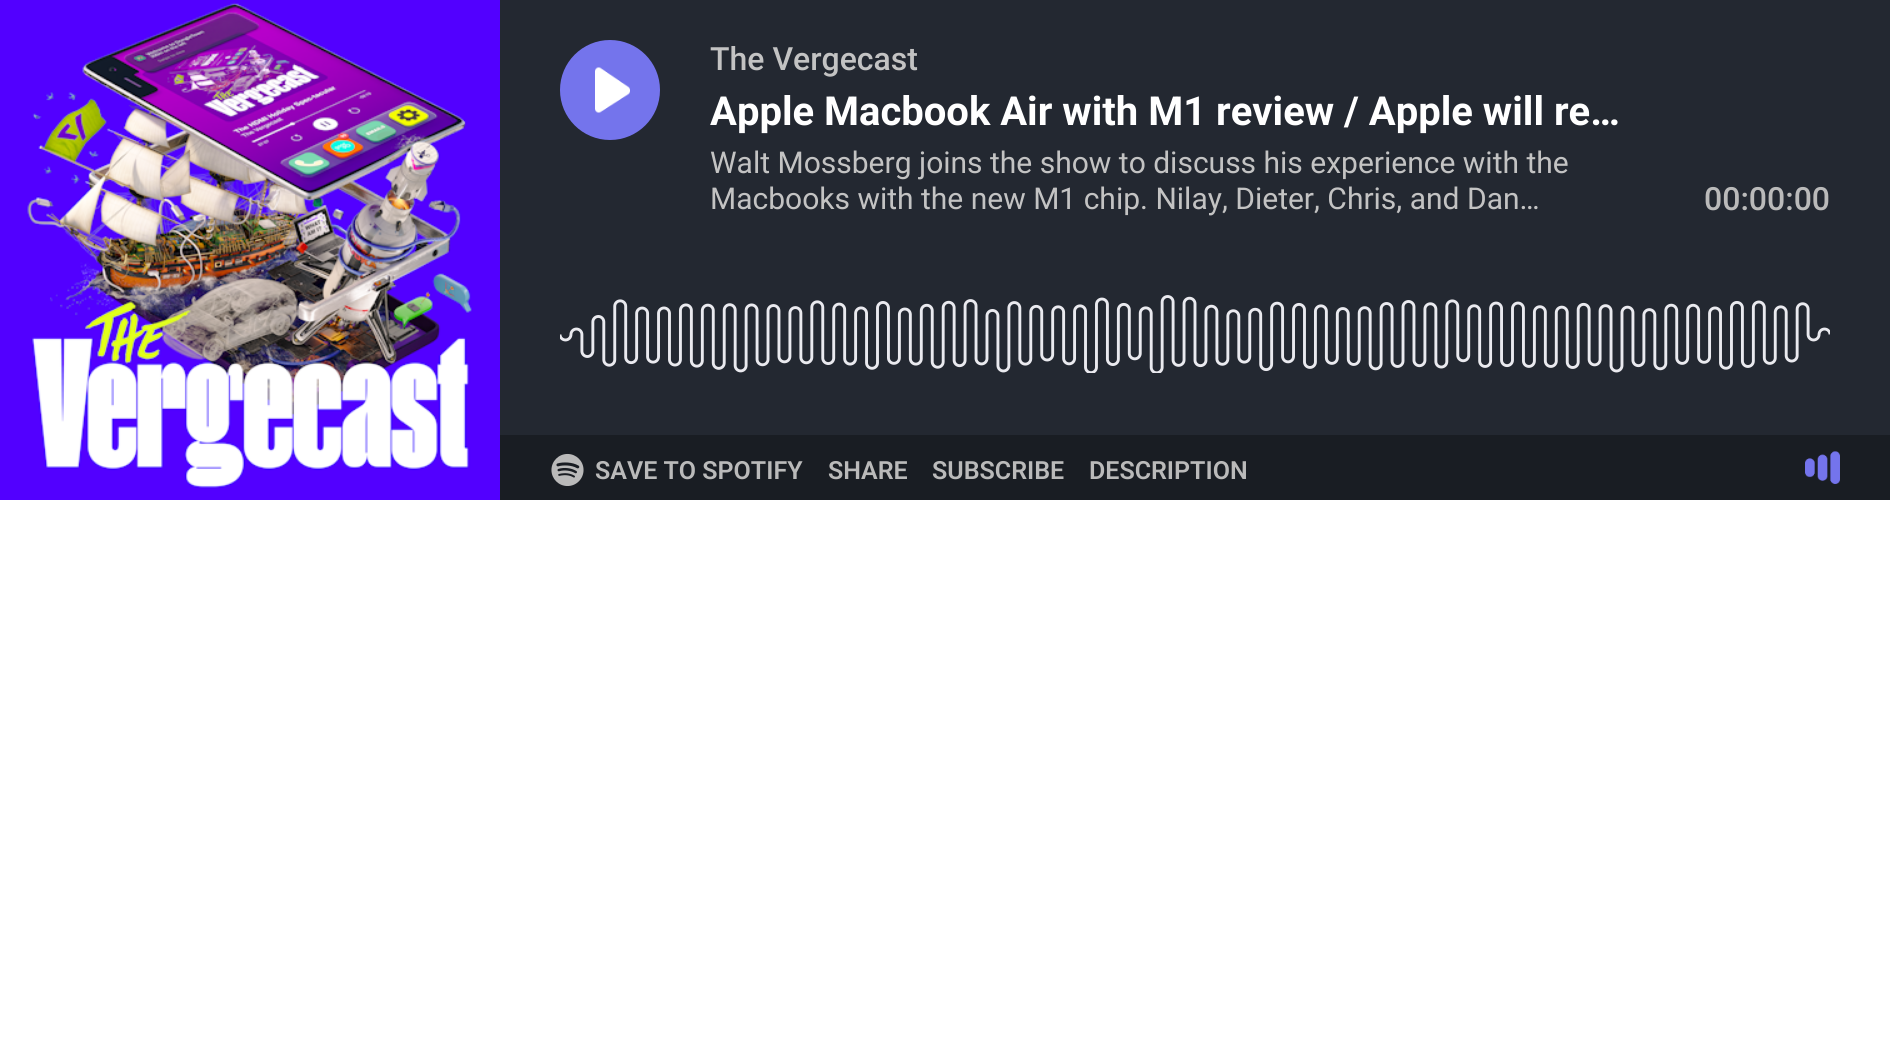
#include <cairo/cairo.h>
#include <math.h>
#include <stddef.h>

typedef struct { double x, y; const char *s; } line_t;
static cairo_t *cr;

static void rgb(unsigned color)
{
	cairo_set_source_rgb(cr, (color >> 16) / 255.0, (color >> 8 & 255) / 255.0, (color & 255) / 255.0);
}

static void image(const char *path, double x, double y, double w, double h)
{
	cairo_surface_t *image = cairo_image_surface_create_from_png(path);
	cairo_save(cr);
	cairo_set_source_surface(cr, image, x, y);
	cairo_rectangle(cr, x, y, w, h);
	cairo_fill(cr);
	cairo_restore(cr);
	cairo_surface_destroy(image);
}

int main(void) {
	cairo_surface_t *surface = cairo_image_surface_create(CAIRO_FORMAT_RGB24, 1890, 1050);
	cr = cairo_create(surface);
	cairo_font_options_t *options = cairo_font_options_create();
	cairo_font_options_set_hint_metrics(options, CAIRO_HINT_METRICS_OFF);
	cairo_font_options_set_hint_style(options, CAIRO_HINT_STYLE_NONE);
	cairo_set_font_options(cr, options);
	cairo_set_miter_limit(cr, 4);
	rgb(0xffffff);
	cairo_paint(cr);
	image("img/1.png", 0, 0, 500, 500);
	rgb(0x232831);
	cairo_rectangle(cr, 500, 0, 1390, 435);
	cairo_fill(cr);
	rgb(0x7474ec);
	cairo_arc(cr, 610, 90, 50, 0, 2 * M_PI);
	cairo_fill(cr);
	image("img/2.png", 595, 67, 35, 46);
	image("img/3.png", 560, 295, 1270, 78);
	rgb(0x191d23);
	cairo_rectangle(cr, 500, 435, 1390, 65);
	cairo_fill(cr);
	image("img/4.png", 551, 453, 33, 33);
	image("img/5.png", 1805, 451, 35, 33);
	cairo_select_font_face(cr, "Roboto Medium", CAIRO_FONT_SLANT_NORMAL, CAIRO_FONT_WEIGHT_NORMAL);
	cairo_set_font_size(cr, 32);
	rgb(0xc3c3c3);
	cairo_move_to(cr, 710, 70);
	cairo_show_text(cr, "The Vergecast");
	cairo_select_font_face(cr, "Roboto", CAIRO_FONT_SLANT_NORMAL, CAIRO_FONT_WEIGHT_BOLD);
	cairo_set_font_size(cr, 40);
	rgb(0xffffff);
	cairo_move_to(cr, 710, 125);
	cairo_show_text(cr, "Apple Macbook Air with M1 review / Apple will re…");
	cairo_select_font_face(cr, "Roboto", CAIRO_FONT_SLANT_NORMAL, CAIRO_FONT_WEIGHT_NORMAL);
	cairo_set_font_size(cr, 30);
	rgb(0xc3c3c3);
	cairo_move_to(cr, 710, 173);
	cairo_show_text(cr, "Walt Mossberg joins the show to discuss his experience with the");
	cairo_move_to(cr, 710, 209);
	cairo_show_text(cr, "Macbooks with the new M1 chip. Nilay, Dieter, Chris, and Dan…");
	cairo_select_font_face(cr, "Roboto Medium", CAIRO_FONT_SLANT_NORMAL, CAIRO_FONT_WEIGHT_NORMAL);
	cairo_set_font_size(cr, 32);
	rgb(0xbababa);
	cairo_move_to(cr, 1704, 210);
	cairo_show_text(cr, "00:00:00");
	cairo_select_font_face(cr, "Roboto SemiBold", CAIRO_FONT_SLANT_NORMAL, CAIRO_FONT_WEIGHT_NORMAL);
	cairo_set_font_size(cr, 25);
	{
		static const line_t items[] = {
			{595, 479, "SAVE TO SPOTIFY"},
			{828, 479, "SHARE"},
			{932, 479, "SUBSCRIBE"},
			{1089, 479, "DESCRIPTION"},
		};
		for (size_t i = 0; i < sizeof items / sizeof *items; i++) {
			cairo_move_to(cr, items[i].x, items[i].y);
			cairo_show_text(cr, items[i].s);
		}
	}
	cairo_surface_write_to_png(surface, "page.png");
	cairo_font_options_destroy(options);
	cairo_destroy(cr);
	cairo_surface_destroy(surface);
	return 0;
}
